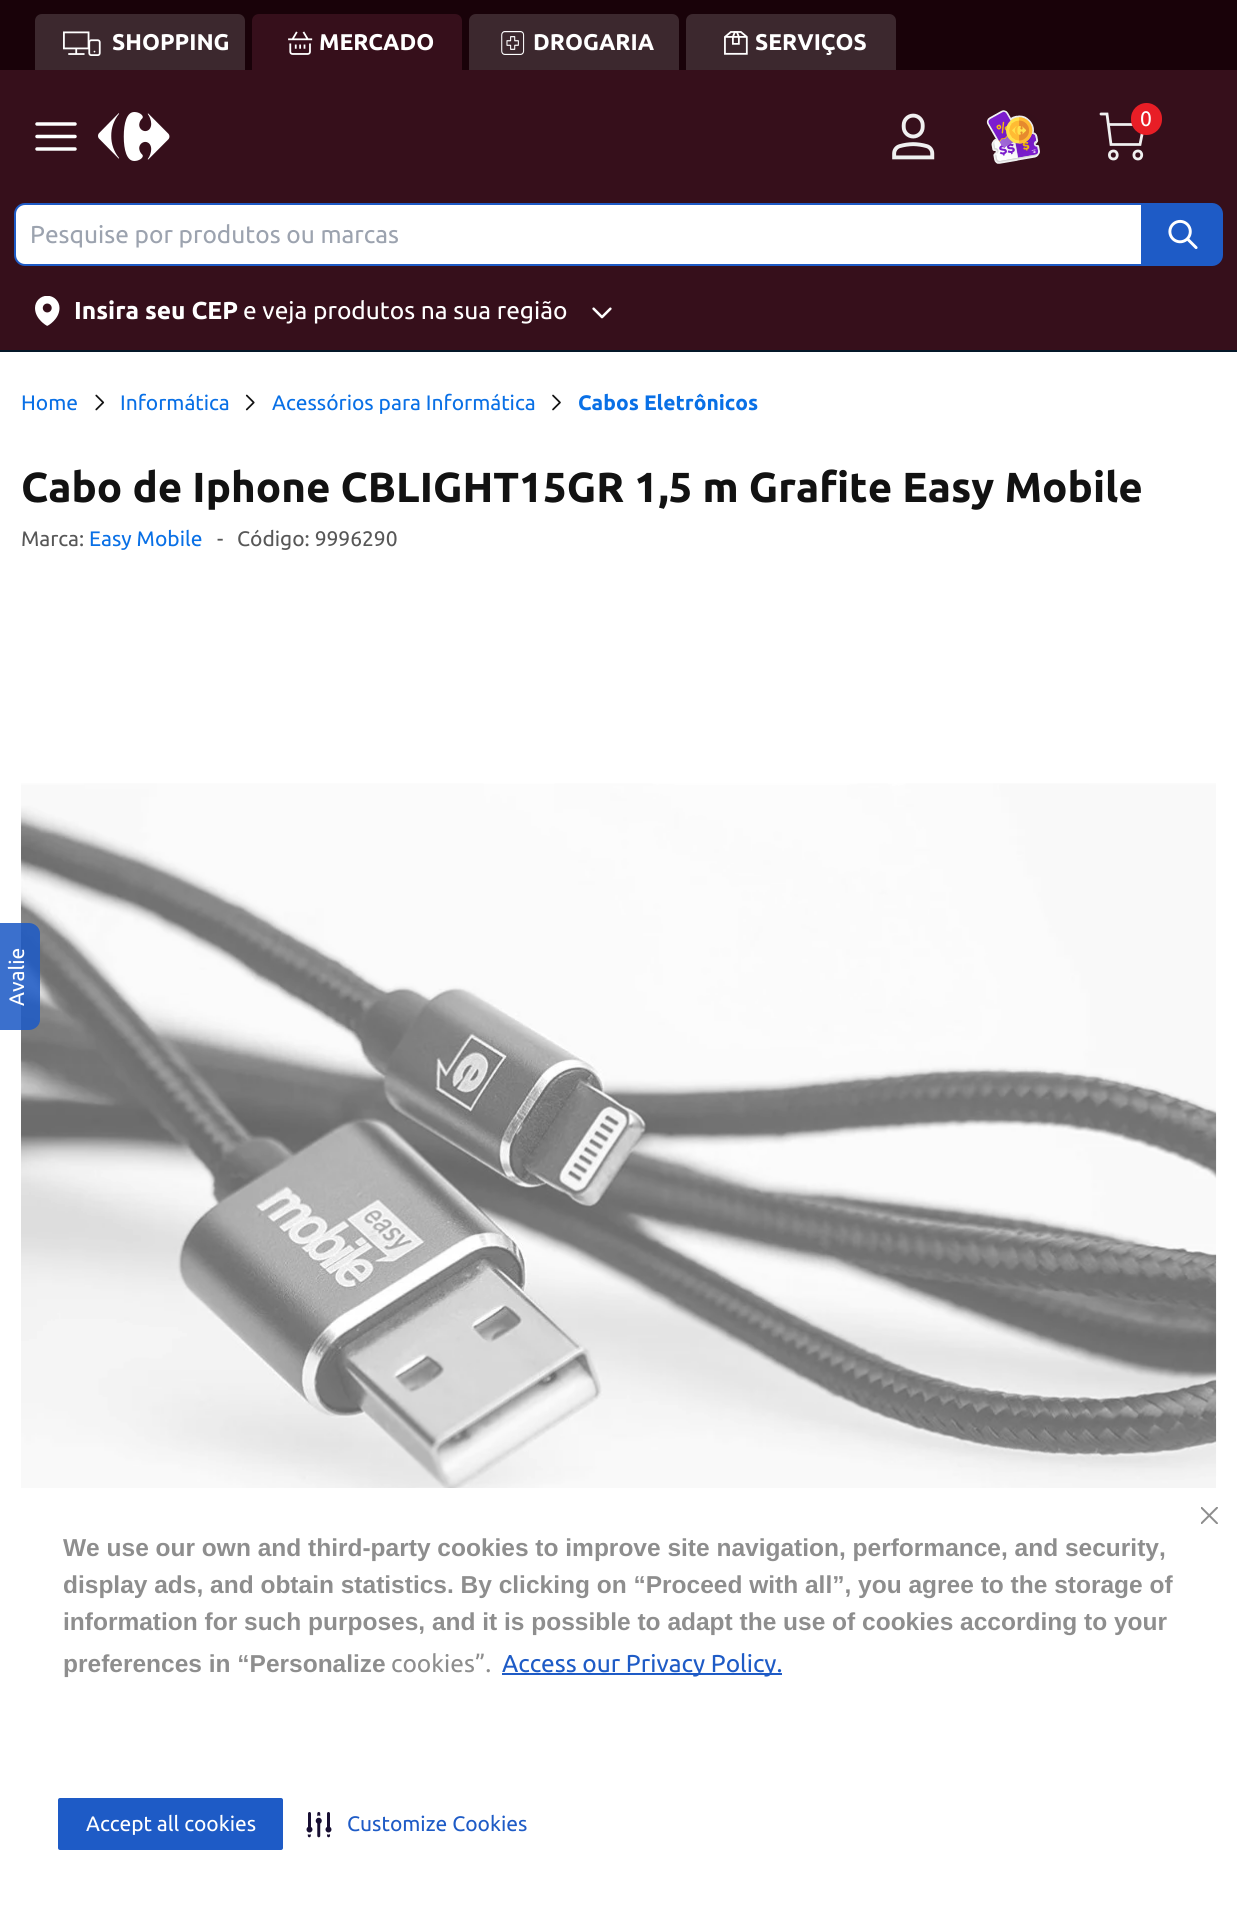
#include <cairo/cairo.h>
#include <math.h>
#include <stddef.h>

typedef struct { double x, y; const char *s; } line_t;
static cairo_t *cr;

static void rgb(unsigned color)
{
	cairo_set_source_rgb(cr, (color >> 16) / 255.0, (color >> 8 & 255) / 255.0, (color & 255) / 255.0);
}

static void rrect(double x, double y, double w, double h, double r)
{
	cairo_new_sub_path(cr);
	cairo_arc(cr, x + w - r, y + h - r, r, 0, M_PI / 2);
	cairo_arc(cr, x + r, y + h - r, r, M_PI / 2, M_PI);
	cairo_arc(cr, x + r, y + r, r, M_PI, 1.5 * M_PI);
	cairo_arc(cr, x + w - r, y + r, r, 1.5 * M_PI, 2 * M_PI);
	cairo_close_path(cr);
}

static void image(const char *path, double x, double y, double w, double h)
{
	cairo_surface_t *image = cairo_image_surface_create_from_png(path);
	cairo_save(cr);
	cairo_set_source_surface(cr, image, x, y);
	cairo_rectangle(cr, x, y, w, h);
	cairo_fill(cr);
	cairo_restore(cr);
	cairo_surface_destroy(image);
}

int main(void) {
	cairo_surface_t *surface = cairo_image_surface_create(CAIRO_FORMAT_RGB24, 1237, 1907);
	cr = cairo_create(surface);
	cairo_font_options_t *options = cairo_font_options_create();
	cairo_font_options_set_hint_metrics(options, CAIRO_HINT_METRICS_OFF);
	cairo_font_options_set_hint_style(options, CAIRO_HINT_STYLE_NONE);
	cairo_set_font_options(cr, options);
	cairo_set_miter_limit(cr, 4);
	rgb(0xffffff);
	cairo_paint(cr);
	rgb(0x360f1b);
	cairo_rectangle(cr, 0, 70, 1237, 280);
	cairo_fill(cr);
	rgb(0x190209);
	cairo_rectangle(cr, 0, 0, 1237, 70);
	cairo_fill(cr);
	rgb(0x3c282e);
	cairo_new_path(cr);
	cairo_move_to(cr, 42, 14);
	cairo_line_to(cr, 238, 14);
	cairo_curve_to(cr, 242, 14, 245, 17, 245, 21);
	cairo_line_to(cr, 245, 70);
	cairo_line_to(cr, 35, 70);
	cairo_line_to(cr, 35, 21);
	cairo_curve_to(cr, 35, 17, 38, 14, 42, 14);
	cairo_close_path(cr);
	cairo_fill(cr);
	image("img/1.png", 63, 31, 38, 25);
	rgb(0x360f1b);
	cairo_new_path(cr);
	cairo_move_to(cr, 259, 14);
	cairo_line_to(cr, 455, 14);
	cairo_curve_to(cr, 459, 14, 462, 17, 462, 21);
	cairo_line_to(cr, 462, 70);
	cairo_line_to(cr, 252, 70);
	cairo_line_to(cr, 252, 21);
	cairo_curve_to(cr, 252, 17, 255, 14, 259, 14);
	cairo_close_path(cr);
	cairo_fill(cr);
	image("img/2.png", 288, 31, 25, 24);
	rgb(0x3c282e);
	cairo_new_path(cr);
	cairo_move_to(cr, 476, 14);
	cairo_line_to(cr, 672, 14);
	cairo_curve_to(cr, 676, 14, 679, 17, 679, 21);
	cairo_line_to(cr, 679, 70);
	cairo_line_to(cr, 469, 70);
	cairo_line_to(cr, 469, 21);
	cairo_curve_to(cr, 469, 17, 472, 14, 476, 14);
	cairo_close_path(cr);
	cairo_fill(cr);
	image("img/3.png", 501, 31, 24, 24);
	cairo_new_path(cr);
	cairo_move_to(cr, 693, 14);
	cairo_line_to(cr, 889, 14);
	cairo_curve_to(cr, 893, 14, 896, 17, 896, 21);
	cairo_line_to(cr, 896, 70);
	cairo_line_to(cr, 686, 70);
	cairo_line_to(cr, 686, 21);
	cairo_curve_to(cr, 686, 17, 689, 14, 693, 14);
	cairo_close_path(cr);
	cairo_fill(cr);
	image("img/4.png", 724, 31, 24, 24);
	cairo_new_path(cr);
	cairo_move_to(cr, 37, 136.5);
	cairo_line_to(cr, 75, 136.5);
	cairo_move_to(cr, 37, 124);
	cairo_line_to(cr, 75, 124);
	cairo_move_to(cr, 37, 149);
	cairo_line_to(cr, 75, 149);
	rgb(0xffffff);
	cairo_set_line_width(cr, 3.5);
	cairo_set_line_cap(cr, CAIRO_LINE_CAP_ROUND);
	cairo_set_line_join(cr, CAIRO_LINE_JOIN_ROUND);
	cairo_stroke(cr);
	image("img/5.png", 98, 112, 72, 49);
	image("img/6.png", 892, 113, 43, 47);
	image("img/7.png", 986, 110, 54, 54);
	cairo_new_path(cr);
	cairo_move_to(cr, 1113.5, 159);
	cairo_curve_to(cr, 1118.5, 159, 1118.5, 151, 1113.5, 151);
	cairo_curve_to(cr, 1108, 151, 1108, 159, 1113.5, 159);
	cairo_close_path(cr);
	cairo_move_to(cr, 1138, 159);
	cairo_curve_to(cr, 1143, 159, 1143, 151, 1138, 151);
	cairo_curve_to(cr, 1132.5, 151, 1132.5, 159, 1138, 159);
	cairo_close_path(cr);
	cairo_move_to(cr, 1108.5, 124.5);
	cairo_line_to(cr, 1144, 124.5);
	cairo_line_to(cr, 1140, 144.5);
	cairo_line_to(cr, 1111, 144.5);
	cairo_line_to(cr, 1107, 114);
	cairo_line_to(cr, 1101, 114);
	rgb(0xf0f0f0);
	cairo_set_line_width(cr, 2.8);
	cairo_set_line_join(cr, CAIRO_LINE_JOIN_MITER);
	cairo_stroke(cr);
	rgb(0xe81e26);
	rrect(1131, 103, 31, 32, 15.5);
	cairo_fill(cr);
	rgb(0xffffff);
	cairo_new_path(cr);
	cairo_move_to(cr, 25, 204);
	cairo_line_to(cr, 1142, 204);
	cairo_line_to(cr, 1142, 265);
	cairo_line_to(cr, 25, 265);
	cairo_curve_to(cr, 19.5, 265, 15, 260.5, 15, 255);
	cairo_line_to(cr, 15, 214);
	cairo_curve_to(cr, 15, 208.5, 19.5, 204, 25, 204);
	cairo_close_path(cr);
	cairo_fill_preserve(cr);
	rgb(0x1e5bc6);
	cairo_set_line_width(cr, 2);
	cairo_set_line_cap(cr, CAIRO_LINE_CAP_BUTT);
	cairo_stroke(cr);
	cairo_new_path(cr);
	cairo_move_to(cr, 1143, 203);
	cairo_line_to(cr, 1212, 203);
	cairo_curve_to(cr, 1218, 203, 1223, 208, 1223, 214);
	cairo_line_to(cr, 1223, 255);
	cairo_curve_to(cr, 1223, 261, 1218, 266, 1212, 266);
	cairo_line_to(cr, 1143, 266);
	cairo_close_path(cr);
	cairo_fill(cr);
	image("img/8.png", 1168, 219, 30, 30);
	rgb(0x041829);
	cairo_rectangle(cr, 0, 350, 1237, 2);
	cairo_fill(cr);
	image("img/9.png", 35, 296, 25, 30);
	image("img/10.png", 592, 307, 20, 12);
	image("img/11.png", 95, 394, 10, 17);
	image("img/12.png", 245, 394, 10, 17);
	image("img/13.png", 552, 394, 9, 17);
	image("img/14.png", 21, 783, 1196, 705);
	cairo_set_source_rgba(cr, 0.118, 0.357, 0.776, 0.87);
	cairo_new_path(cr);
	cairo_move_to(cr, -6, 1030);
	cairo_line_to(cr, -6, 923);
	cairo_line_to(cr, 29, 923);
	cairo_curve_to(cr, 35, 923, 40, 928, 40, 933);
	cairo_line_to(cr, 40, 1020);
	cairo_curve_to(cr, 40, 1025, 35, 1030, 29, 1030);
	cairo_close_path(cr);
	cairo_fill(cr);
	rgb(0x1e5bc6);
	cairo_rectangle(cr, 502, 1673, 280, 2);
	cairo_fill(cr);
	image("img/15.png", 1201, 1507, 17, 17);
	rrect(57, 1797, 227, 54, 3);
	cairo_fill_preserve(cr);
	rgb(0xffffff);
	cairo_stroke(cr);
	image("img/16.png", 306, 1812, 26, 26);
	cairo_select_font_face(cr, "Ubuntu", CAIRO_FONT_SLANT_NORMAL, CAIRO_FONT_WEIGHT_BOLD);
	cairo_set_font_size(cr, 22.75);
	{
		static const line_t items[] = {
			{112, 50, "SHOPPING"},
			{319, 50, "MERCADO"},
			{533, 50, "DROGARIA"},
			{755, 50, "SERVIÇOS"},
		};
		for (size_t i = 0; i < sizeof items / sizeof *items; i++) {
			cairo_move_to(cr, items[i].x, items[i].y);
			cairo_show_text(cr, items[i].s);
		}
	}
	cairo_select_font_face(cr, "Ubuntu", CAIRO_FONT_SLANT_NORMAL, CAIRO_FONT_WEIGHT_NORMAL);
	cairo_set_font_size(cr, 21);
	cairo_move_to(cr, 1140, 126);
	cairo_show_text(cr, "0");
	cairo_set_font_size(cr, 24.5);
	rgb(0x9ca3af);
	cairo_move_to(cr, 30, 243);
	cairo_show_text(cr, "Pesquise por produtos ou marcas");
	cairo_select_font_face(cr, "Ubuntu", CAIRO_FONT_SLANT_NORMAL, CAIRO_FONT_WEIGHT_BOLD);
	rgb(0xffffff);
	cairo_move_to(cr, 74, 319);
	cairo_show_text(cr, "Insira seu CEP");
	cairo_select_font_face(cr, "Ubuntu", CAIRO_FONT_SLANT_NORMAL, CAIRO_FONT_WEIGHT_NORMAL);
	cairo_move_to(cr, 243, 319);
	cairo_show_text(cr, "e veja produtos na sua região");
	cairo_set_font_size(cr, 21);
	rgb(0x0970e6);
	{
		static const line_t items[] = {
			{21, 410, "Home"},
			{120, 410, "Informática"},
			{272, 410, "Acessórios para Informática"},
		};
		for (size_t i = 0; i < sizeof items / sizeof *items; i++) {
			cairo_move_to(cr, items[i].x, items[i].y);
			cairo_show_text(cr, items[i].s);
		}
	}
	cairo_select_font_face(cr, "Ubuntu", CAIRO_FONT_SLANT_NORMAL, CAIRO_FONT_WEIGHT_BOLD);
	cairo_move_to(cr, 578, 410);
	cairo_show_text(cr, "Cabos Eletrônicos");
	cairo_set_font_size(cr, 42);
	rgb(0x121212);
	cairo_move_to(cr, 21, 502);
	cairo_show_text(cr, "Cabo de Iphone CBLIGHT15GR 1,5 m Grafite Easy Mobile");
	cairo_select_font_face(cr, "Ubuntu", CAIRO_FONT_SLANT_NORMAL, CAIRO_FONT_WEIGHT_NORMAL);
	cairo_set_font_size(cr, 21);
	rgb(0x575757);
	cairo_move_to(cr, 21, 546);
	cairo_show_text(cr, "Marca:");
	rgb(0x0970e6);
	cairo_move_to(cr, 89, 546);
	cairo_show_text(cr, "Easy Mobile");
	rgb(0x575757);
	cairo_move_to(cr, 217, 546);
	cairo_show_text(cr, "-");
	cairo_move_to(cr, 237, 546);
	cairo_show_text(cr, "Código: 9996290");
	rgb(0xffffff);
	cairo_save(cr);
	cairo_translate(cr, 24, 1006);
	cairo_rotate(cr, -90 * M_PI / 180);
	cairo_move_to(cr, 0, 0);
	cairo_show_text(cr, "Avalie");
	cairo_restore(cr);
	cairo_select_font_face(cr, "Liberation Sans", CAIRO_FONT_SLANT_NORMAL, CAIRO_FONT_WEIGHT_BOLD);
	cairo_set_font_size(cr, 24.5);
	rgb(0x8e8e8e);
	{
		static const line_t items[] = {
			{63, 1556, "We use our own and third-party cookies to improve site navigation, performance, and security,"},
			{63, 1593, "display ads, and obtain statistics. By clicking on “Proceed with all”, you agree to the storage of"},
			{63, 1630, "information for such purposes, and it is possible to adapt the use of cookies according to your"},
			{63, 1672, "preferences in “Personalize"},
		};
		for (size_t i = 0; i < sizeof items / sizeof *items; i++) {
			cairo_move_to(cr, items[i].x, items[i].y);
			cairo_show_text(cr, items[i].s);
		}
	}
	cairo_select_font_face(cr, "Ubuntu", CAIRO_FONT_SLANT_NORMAL, CAIRO_FONT_WEIGHT_NORMAL);
	cairo_move_to(cr, 391, 1672);
	cairo_show_text(cr, "cookies”.");
	rgb(0x1e5bc6);
	cairo_move_to(cr, 502, 1672);
	cairo_show_text(cr, "Access our Privacy Policy.");
	cairo_set_font_size(cr, 21);
	rgb(0xffffff);
	cairo_move_to(cr, 86, 1831);
	cairo_show_text(cr, "Accept all cookies");
	rgb(0x1e5bc6);
	cairo_move_to(cr, 347, 1831);
	cairo_show_text(cr, "Customize Cookies");
	cairo_surface_write_to_png(surface, "page.png");
	cairo_font_options_destroy(options);
	cairo_destroy(cr);
	cairo_surface_destroy(surface);
	return 0;
}
